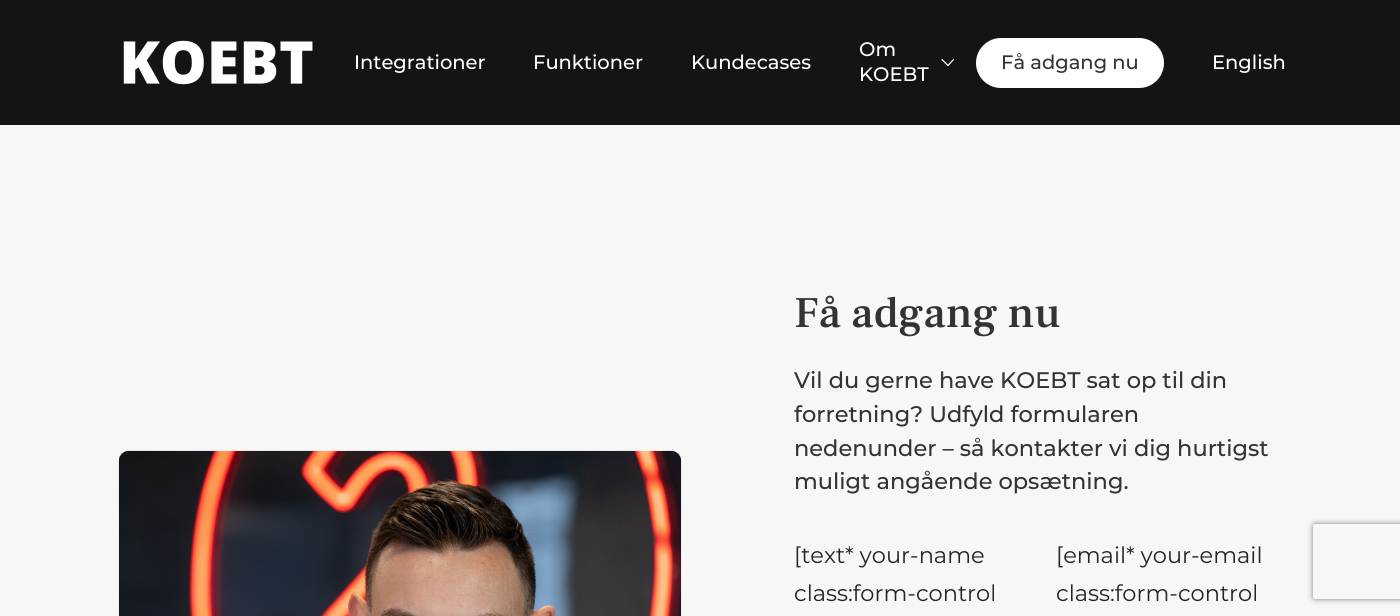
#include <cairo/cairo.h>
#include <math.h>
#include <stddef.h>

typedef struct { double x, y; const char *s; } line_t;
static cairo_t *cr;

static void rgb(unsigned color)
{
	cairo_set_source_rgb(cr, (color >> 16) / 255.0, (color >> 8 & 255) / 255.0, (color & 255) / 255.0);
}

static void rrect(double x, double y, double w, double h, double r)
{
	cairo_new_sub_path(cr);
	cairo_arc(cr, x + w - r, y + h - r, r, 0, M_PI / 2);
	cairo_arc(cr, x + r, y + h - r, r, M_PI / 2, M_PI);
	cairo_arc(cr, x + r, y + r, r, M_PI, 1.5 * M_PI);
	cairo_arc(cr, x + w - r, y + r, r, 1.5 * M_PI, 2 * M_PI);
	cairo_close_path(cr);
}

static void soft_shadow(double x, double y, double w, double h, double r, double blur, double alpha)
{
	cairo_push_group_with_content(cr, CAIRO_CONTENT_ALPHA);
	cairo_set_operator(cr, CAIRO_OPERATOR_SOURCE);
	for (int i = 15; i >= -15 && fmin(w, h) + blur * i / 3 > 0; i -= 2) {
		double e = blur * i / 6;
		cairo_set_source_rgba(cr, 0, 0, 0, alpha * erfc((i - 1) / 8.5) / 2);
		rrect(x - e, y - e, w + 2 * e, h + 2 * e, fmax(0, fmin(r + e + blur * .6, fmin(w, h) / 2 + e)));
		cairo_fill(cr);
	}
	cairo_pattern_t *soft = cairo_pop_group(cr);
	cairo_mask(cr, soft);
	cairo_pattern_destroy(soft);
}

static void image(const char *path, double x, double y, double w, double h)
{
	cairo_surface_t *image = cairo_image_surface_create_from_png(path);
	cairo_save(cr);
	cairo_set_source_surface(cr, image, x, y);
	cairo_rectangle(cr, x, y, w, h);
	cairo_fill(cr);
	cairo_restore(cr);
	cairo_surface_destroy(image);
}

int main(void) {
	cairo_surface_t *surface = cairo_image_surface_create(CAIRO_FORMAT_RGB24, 1400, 616);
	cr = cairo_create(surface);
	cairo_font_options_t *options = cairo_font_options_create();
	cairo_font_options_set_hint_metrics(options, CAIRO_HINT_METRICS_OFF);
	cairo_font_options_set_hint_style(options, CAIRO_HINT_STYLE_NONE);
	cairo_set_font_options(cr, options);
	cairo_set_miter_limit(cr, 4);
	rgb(0xf7f7f7);
	cairo_paint(cr);
	rgb(0x141414);
	cairo_rectangle(cr, 0, 0, 1400, 125);
	cairo_fill(cr);
	image("img/1.png", 123, 40, 190, 45);
	cairo_new_path(cr);
	cairo_move_to(cr, 942, 59.5);
	cairo_line_to(cr, 948, 65.5);
	cairo_line_to(cr, 953.5, 59.5);
	rgb(0xffffff);
	cairo_set_line_width(cr, 1.2);
	cairo_set_line_cap(cr, CAIRO_LINE_CAP_ROUND);
	cairo_set_line_join(cr, CAIRO_LINE_JOIN_ROUND);
	cairo_stroke(cr);
	rrect(976, 38, 188, 50, 25);
	cairo_fill(cr);
	image("img/2.png", 118, 450, 564, 166);
	cairo_save(cr);
	cairo_set_fill_rule(cr, CAIRO_FILL_RULE_EVEN_ODD);
	cairo_new_path(cr);
	cairo_move_to(cr, 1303, 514);
	cairo_line_to(cr, 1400, 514);
	cairo_line_to(cr, 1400, 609);
	cairo_line_to(cr, 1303, 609);
	cairo_close_path(cr);
	cairo_move_to(cr, 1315.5, 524);
	cairo_line_to(cr, 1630.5, 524);
	cairo_curve_to(cr, 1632, 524, 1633, 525, 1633, 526.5);
	cairo_line_to(cr, 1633, 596.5);
	cairo_curve_to(cr, 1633, 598, 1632, 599, 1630.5, 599);
	cairo_line_to(cr, 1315.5, 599);
	cairo_curve_to(cr, 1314, 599, 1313, 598, 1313, 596.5);
	cairo_line_to(cr, 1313, 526.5);
	cairo_curve_to(cr, 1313, 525, 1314, 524, 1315.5, 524);
	cairo_close_path(cr);
	cairo_clip(cr);
	rgb(0x808080);
	soft_shadow(1313, 524, 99, 75, 2.5, 3, 1);
	cairo_restore(cr);
	cairo_select_font_face(cr, "Montserrat Medium", CAIRO_FONT_SLANT_NORMAL, CAIRO_FONT_WEIGHT_NORMAL);
	cairo_set_font_size(cr, 19.5);
	{
		static const line_t items[] = {
			{354, 69, "Integrationer"},
			{533, 69, "Funktioner"},
			{691, 69, "Kundecases"},
			{859, 56, "Om"},
			{859, 81, "KOEBT"},
		};
		for (size_t i = 0; i < sizeof items / sizeof *items; i++) {
			cairo_move_to(cr, items[i].x, items[i].y);
			cairo_show_text(cr, items[i].s);
		}
	}
	rgb(0x333333);
	cairo_move_to(cr, 1001, 69);
	cairo_show_text(cr, "Få adgang nu");
	rgb(0xffffff);
	cairo_move_to(cr, 1212, 69);
	cairo_show_text(cr, "English");
	cairo_select_font_face(cr, "Frank Ruhl Libre Medium", CAIRO_FONT_SLANT_NORMAL, CAIRO_FONT_WEIGHT_NORMAL);
	cairo_set_font_size(cr, 43.75);
	rgb(0x333333);
	cairo_move_to(cr, 794, 327);
	cairo_show_text(cr, "Få adgang nu");
	cairo_select_font_face(cr, "Montserrat Medium", CAIRO_FONT_SLANT_NORMAL, CAIRO_FONT_WEIGHT_NORMAL);
	cairo_set_font_size(cr, 22.5);
	{
		static const line_t items[] = {
			{794, 388, "Vil du gerne have KOEBT sat op til din"},
			{794, 422, "forretning? Udfyld formularen"},
			{794, 456, "nedenunder – så kontakter vi dig hurtigst"},
			{794, 489, "muligt angående opsætning."},
		};
		for (size_t i = 0; i < sizeof items / sizeof *items; i++) {
			cairo_move_to(cr, items[i].x, items[i].y);
			cairo_show_text(cr, items[i].s);
		}
	}
	cairo_select_font_face(cr, "Montserrat", CAIRO_FONT_SLANT_NORMAL, CAIRO_FONT_WEIGHT_NORMAL);
	rgb(0x212529);
	{
		static const line_t items[] = {
			{794, 563, "[text* your-name"},
			{794, 601, "class:form-control"},
			{1056, 563, "[email* your-email"},
			{1056, 601, "class:form-control"},
		};
		for (size_t i = 0; i < sizeof items / sizeof *items; i++) {
			cairo_move_to(cr, items[i].x, items[i].y);
			cairo_show_text(cr, items[i].s);
		}
	}
	cairo_surface_write_to_png(surface, "page.png");
	cairo_font_options_destroy(options);
	cairo_destroy(cr);
	cairo_surface_destroy(surface);
	return 0;
}
